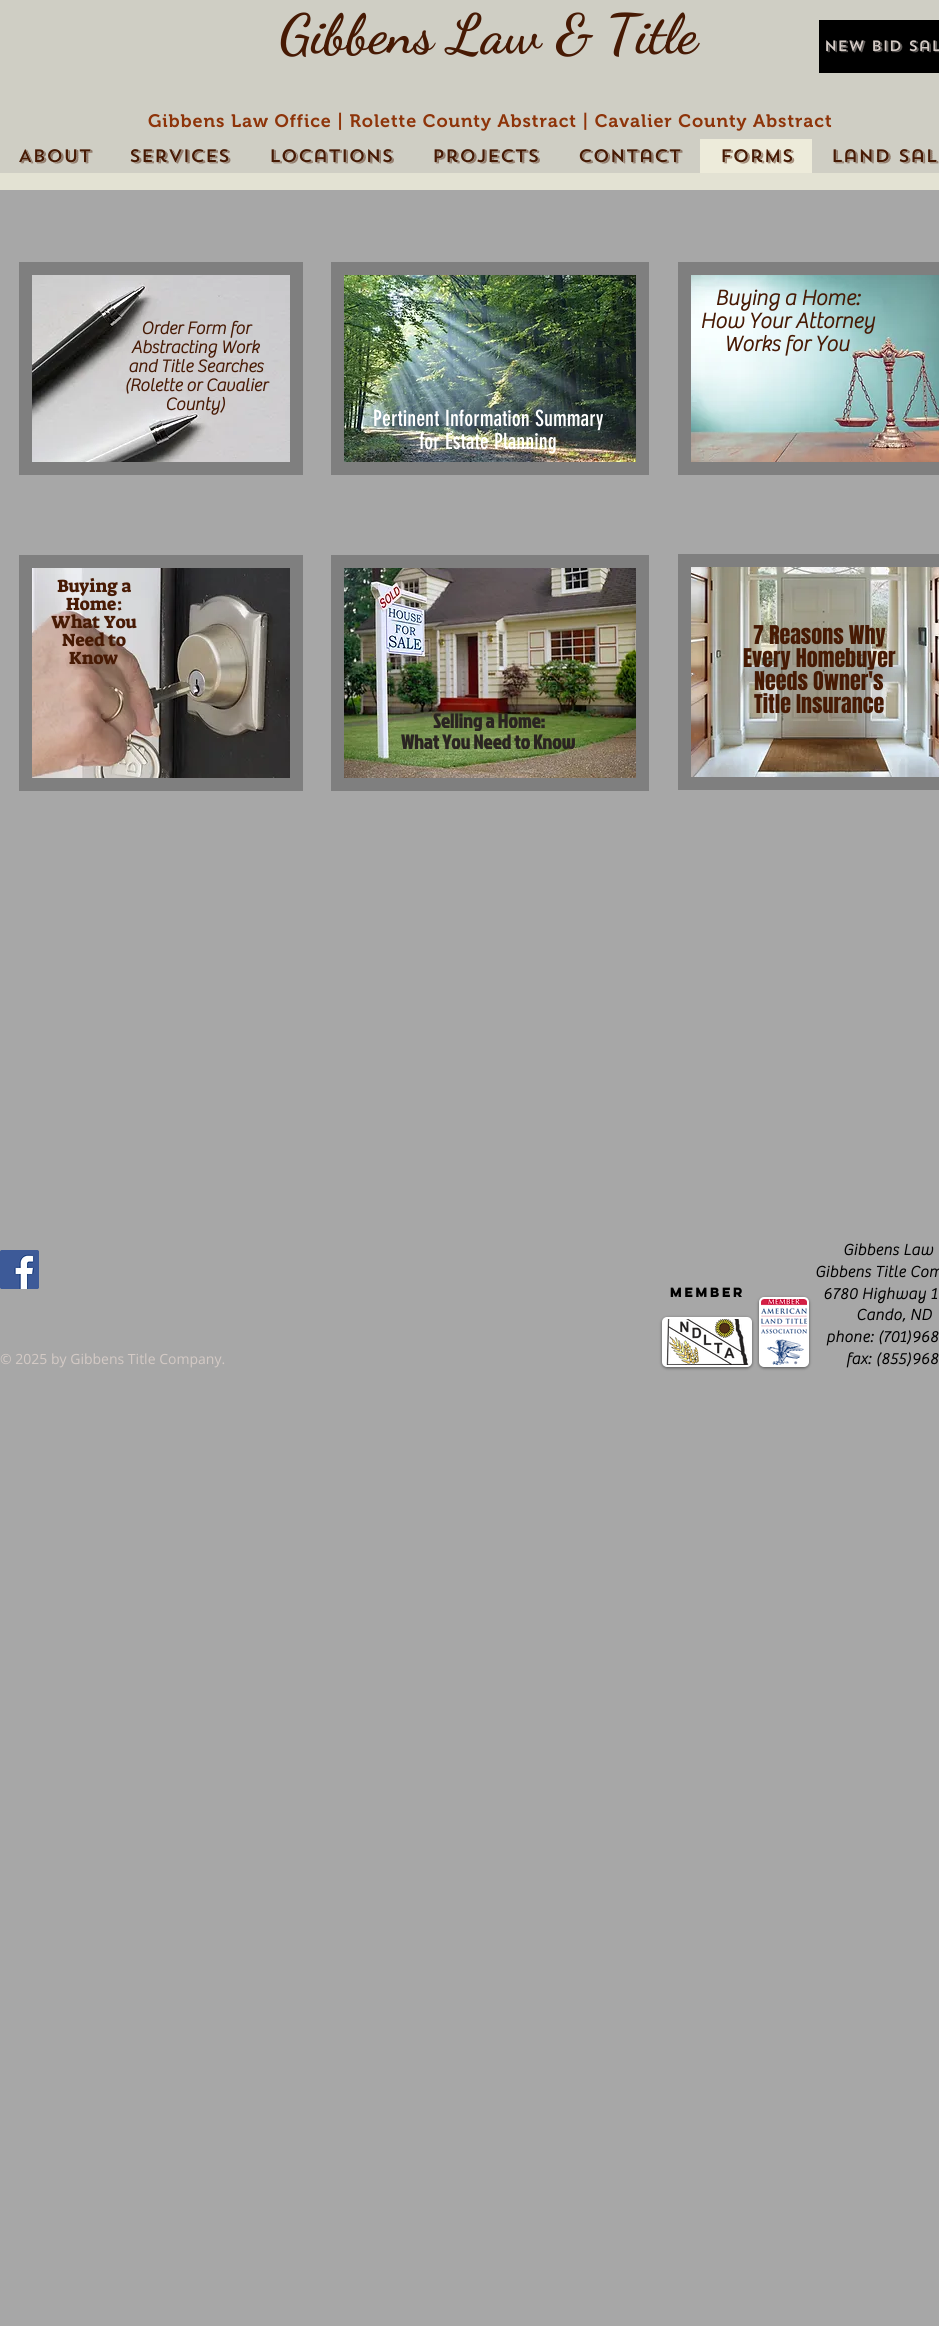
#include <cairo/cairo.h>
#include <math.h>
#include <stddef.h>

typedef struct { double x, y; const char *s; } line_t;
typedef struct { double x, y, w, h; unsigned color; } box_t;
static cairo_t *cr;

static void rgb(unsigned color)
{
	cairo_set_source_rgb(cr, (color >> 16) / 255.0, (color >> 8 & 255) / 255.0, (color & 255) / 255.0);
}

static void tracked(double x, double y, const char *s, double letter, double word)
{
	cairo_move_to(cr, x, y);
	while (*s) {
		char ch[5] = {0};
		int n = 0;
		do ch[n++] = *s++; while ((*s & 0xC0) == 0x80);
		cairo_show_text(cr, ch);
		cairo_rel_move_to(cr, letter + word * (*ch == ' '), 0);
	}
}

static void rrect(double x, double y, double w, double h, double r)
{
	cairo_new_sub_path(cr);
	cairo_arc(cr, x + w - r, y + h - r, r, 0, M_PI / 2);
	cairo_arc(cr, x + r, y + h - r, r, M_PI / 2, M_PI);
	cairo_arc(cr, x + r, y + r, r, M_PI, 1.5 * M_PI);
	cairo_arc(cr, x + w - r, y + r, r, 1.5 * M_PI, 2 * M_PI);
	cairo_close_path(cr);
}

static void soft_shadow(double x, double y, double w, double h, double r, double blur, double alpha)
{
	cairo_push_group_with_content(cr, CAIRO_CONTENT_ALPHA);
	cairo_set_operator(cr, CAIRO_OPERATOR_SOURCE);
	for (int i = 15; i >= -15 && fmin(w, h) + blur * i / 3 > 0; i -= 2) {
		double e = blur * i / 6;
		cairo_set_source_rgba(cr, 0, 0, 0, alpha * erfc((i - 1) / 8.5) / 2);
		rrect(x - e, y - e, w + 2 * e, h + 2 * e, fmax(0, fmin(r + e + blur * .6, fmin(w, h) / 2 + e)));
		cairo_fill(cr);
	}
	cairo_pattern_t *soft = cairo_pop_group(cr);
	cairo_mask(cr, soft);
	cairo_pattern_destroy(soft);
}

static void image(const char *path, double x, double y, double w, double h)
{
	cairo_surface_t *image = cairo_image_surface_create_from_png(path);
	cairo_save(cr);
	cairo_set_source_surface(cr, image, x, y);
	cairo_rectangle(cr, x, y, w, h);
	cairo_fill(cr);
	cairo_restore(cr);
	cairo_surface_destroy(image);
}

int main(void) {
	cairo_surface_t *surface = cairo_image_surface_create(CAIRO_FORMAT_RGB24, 939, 2326);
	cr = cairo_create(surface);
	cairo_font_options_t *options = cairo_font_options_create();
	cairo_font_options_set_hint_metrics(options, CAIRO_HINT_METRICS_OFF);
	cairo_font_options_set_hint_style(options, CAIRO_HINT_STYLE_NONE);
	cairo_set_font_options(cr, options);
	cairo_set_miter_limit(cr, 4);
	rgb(0xa7a7a7);
	cairo_paint(cr);
	{
		static const box_t items[] = {
			{0, 0, 939, 173, 0xcfcec4},
			{819, 20, 120, 53, 0x000000},
			{700, 139, 112, 34, 0xedebda},
			{0, 173, 939, 17, 0xe3e2d3},
		};
		for (size_t i = 0; i < sizeof items / sizeof *items; i++) {
			rgb(items[i].color);
			cairo_rectangle(cr, items[i].x, items[i].y, items[i].w, items[i].h);
			cairo_fill(cr);
		}
	}
	image("img/1.png", 32, 275, 258, 187);
	cairo_rectangle(cr, 25.5, 268.5, 271, 200);
	rgb(0x7f7f7f);
	cairo_set_line_width(cr, 13);
	cairo_stroke(cr);
	image("img/2.png", 344, 275, 292, 187);
	cairo_rectangle(cr, 337.5, 268.5, 305, 200);
	cairo_stroke(cr);
	image("img/3.png", 691, 275, 248, 187);
	cairo_rectangle(cr, 684.5, 268.5, 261, 200);
	cairo_stroke(cr);
	image("img/4.png", 32, 568, 258, 210);
	cairo_rectangle(cr, 25.5, 561.5, 271, 223);
	cairo_stroke(cr);
	image("img/5.png", 344, 568, 292, 210);
	cairo_rectangle(cr, 337.5, 561.5, 305, 223);
	cairo_stroke(cr);
	image("img/6.png", 691, 567, 248, 210);
	cairo_rectangle(cr, 684.5, 560.5, 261, 223);
	cairo_stroke(cr);
	image("img/7.png", 0, 1250, 39, 39);
	rgb(0x000000);
	soft_shadow(759, 1298, 50, 70, 5, 1.5, 0.5);
	rgb(0xffffff);
	rrect(760, 1298, 48, 68, 4);
	cairo_fill_preserve(cr);
	cairo_set_line_width(cr, 2);
	cairo_stroke(cr);
	image("img/8.png", 761, 1299, 46, 66);
	rgb(0x000000);
	soft_shadow(662, 1318, 90, 50, 5, 1.5, 0.5);
	rgb(0xffffff);
	rrect(663, 1318, 88, 48, 4);
	cairo_fill_preserve(cr);
	cairo_stroke(cr);
	image("img/9.png", 666, 1319, 83, 46);
	cairo_select_font_face(cr, "Dancing Script", CAIRO_FONT_SLANT_NORMAL, CAIRO_FONT_WEIGHT_BOLD);
	cairo_set_font_size(cr, 55);
	rgb(0x471a04);
	cairo_move_to(cr, 279, 52);
	cairo_show_text(cr, "Gibbens Law & Title");
	cairo_select_font_face(cr, "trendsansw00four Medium", CAIRO_FONT_SLANT_NORMAL, CAIRO_FONT_WEIGHT_NORMAL);
	cairo_set_font_size(cr, 15);
	rgb(0xd4cac5);
	cairo_move_to(cr, 824, 51);
	cairo_show_text(cr, "NEW Bid Sal");
	cairo_select_font_face(cr, "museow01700 SemiBold", CAIRO_FONT_SLANT_NORMAL, CAIRO_FONT_WEIGHT_NORMAL);
	cairo_set_font_size(cr, 18);
	rgb(0x8e3409);
	tracked(148, 127, "Gibbens Law Office | Rolette County Abstract | Cavalier County Abstract", 0.9, 0);
	cairo_select_font_face(cr, "trendsansw00four Medium", CAIRO_FONT_SLANT_NORMAL, CAIRO_FONT_WEIGHT_NORMAL);
	rgb(0x471a04);
	{
		static const line_t items[] = {
			{18, 162, "About"},
			{129, 162, "Services"},
			{269, 162, "Locations"},
			{432, 162, "Projects"},
			{578, 162, "Contact"},
			{720, 162, "Forms"},
			{831, 162, "Land Sal"},
		};
		for (size_t i = 0; i < sizeof items / sizeof *items; i++) {
			cairo_move_to(cr, items[i].x, items[i].y);
			cairo_show_text(cr, items[i].s);
		}
	}
	cairo_select_font_face(cr, "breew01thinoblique", CAIRO_FONT_SLANT_NORMAL, CAIRO_FONT_WEIGHT_BOLD);
	{
		static const line_t items[] = {
			{141, 334, "Order Form for"},
			{131, 353, "Abstracting Work"},
			{128, 372, "and Title Searches"},
			{124, 391, "(Rolette or Cavalier"},
			{165, 410, "County)"},
		};
		for (size_t i = 0; i < sizeof items / sizeof *items; i++) {
			cairo_move_to(cr, items[i].x, items[i].y);
			cairo_show_text(cr, items[i].s);
		}
	}
	cairo_set_font_size(cr, 22);
	{
		static const line_t items[] = {
			{715, 305, "Buying a Home:"},
			{700, 328, "How Your Attorney"},
			{724, 351, "Works for You"},
		};
		for (size_t i = 0; i < sizeof items / sizeof *items; i++) {
			cairo_move_to(cr, items[i].x, items[i].y);
			cairo_show_text(cr, items[i].s);
		}
	}
	cairo_select_font_face(cr, "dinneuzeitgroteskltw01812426", CAIRO_FONT_SLANT_NORMAL, CAIRO_FONT_WEIGHT_NORMAL);
	rgb(0xffffff);
	cairo_move_to(cr, 373, 426);
	cairo_show_text(cr, "Pertinent Information Summary");
	cairo_move_to(cr, 419, 449);
	cairo_show_text(cr, "for Estate Planning");
	cairo_select_font_face(cr, "Suez One", CAIRO_FONT_SLANT_NORMAL, CAIRO_FONT_WEIGHT_NORMAL);
	cairo_set_font_size(cr, 18);
	rgb(0x471a04);
	{
		static const line_t items[] = {
			{57, 592, "Buying a"},
			{66, 610, "Home:"},
			{51, 628, "What You"},
			{62, 646, "Need to"},
			{69, 664, "Know"},
		};
		for (size_t i = 0; i < sizeof items / sizeof *items; i++) {
			cairo_move_to(cr, items[i].x, items[i].y);
			cairo_show_text(cr, items[i].s);
		}
	}
	cairo_select_font_face(cr, "Anton", CAIRO_FONT_SLANT_NORMAL, CAIRO_FONT_WEIGHT_NORMAL);
	cairo_set_font_size(cr, 22);
	{
		static const line_t items[] = {
			{753, 644, "7 Reasons Why"},
			{743, 667, "Every Homebuyer"},
			{754, 690, "Needs Owner's"},
			{754, 713, "Title Insurance"},
		};
		for (size_t i = 0; i < sizeof items / sizeof *items; i++) {
			cairo_move_to(cr, items[i].x, items[i].y);
			cairo_show_text(cr, items[i].s);
		}
	}
	cairo_select_font_face(cr, "Jockey One", CAIRO_FONT_SLANT_NORMAL, CAIRO_FONT_WEIGHT_BOLD);
	cairo_set_font_size(cr, 20);
	rgb(0x2a2421);
	cairo_move_to(cr, 433, 728);
	cairo_show_text(cr, "Selling a Home:");
	cairo_move_to(cr, 401, 749);
	cairo_show_text(cr, "What You Need to Know");
	cairo_select_font_face(cr, "breew01thinoblique", CAIRO_FONT_SLANT_NORMAL, CAIRO_FONT_WEIGHT_BOLD);
	cairo_set_font_size(cr, 16);
	rgb(0x000000);
	{
		static const line_t items[] = {
			{843, 1255, "Gibbens Law"},
			{815, 1277, "Gibbens Title Com"},
			{823, 1299, "6780 Highway 1"},
			{856, 1320, "Cando, ND"},
			{826, 1342, "phone: (701)968"},
			{846, 1364, "fax: (855)968"},
		};
		for (size_t i = 0; i < sizeof items / sizeof *items; i++) {
			tracked(items[i].x, items[i].y, items[i].s, 0.5, 0);
		}
	}
	cairo_select_font_face(cr, "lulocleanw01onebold", CAIRO_FONT_SLANT_NORMAL, CAIRO_FONT_WEIGHT_BOLD);
	cairo_set_font_size(cr, 12);
	cairo_move_to(cr, 670, 1297);
	cairo_show_text(cr, "MEMBER");
	cairo_select_font_face(cr, "Open Sans", CAIRO_FONT_SLANT_NORMAL, CAIRO_FONT_WEIGHT_NORMAL);
	cairo_set_font_size(cr, 14);
	rgb(0xd4cac5);
	cairo_move_to(cr, 0, 1364);
	cairo_show_text(cr, "© 2025 by Gibbens Title Company.");
	cairo_surface_write_to_png(surface, "page.png");
	cairo_font_options_destroy(options);
	cairo_destroy(cr);
	cairo_surface_destroy(surface);
	return 0;
}
